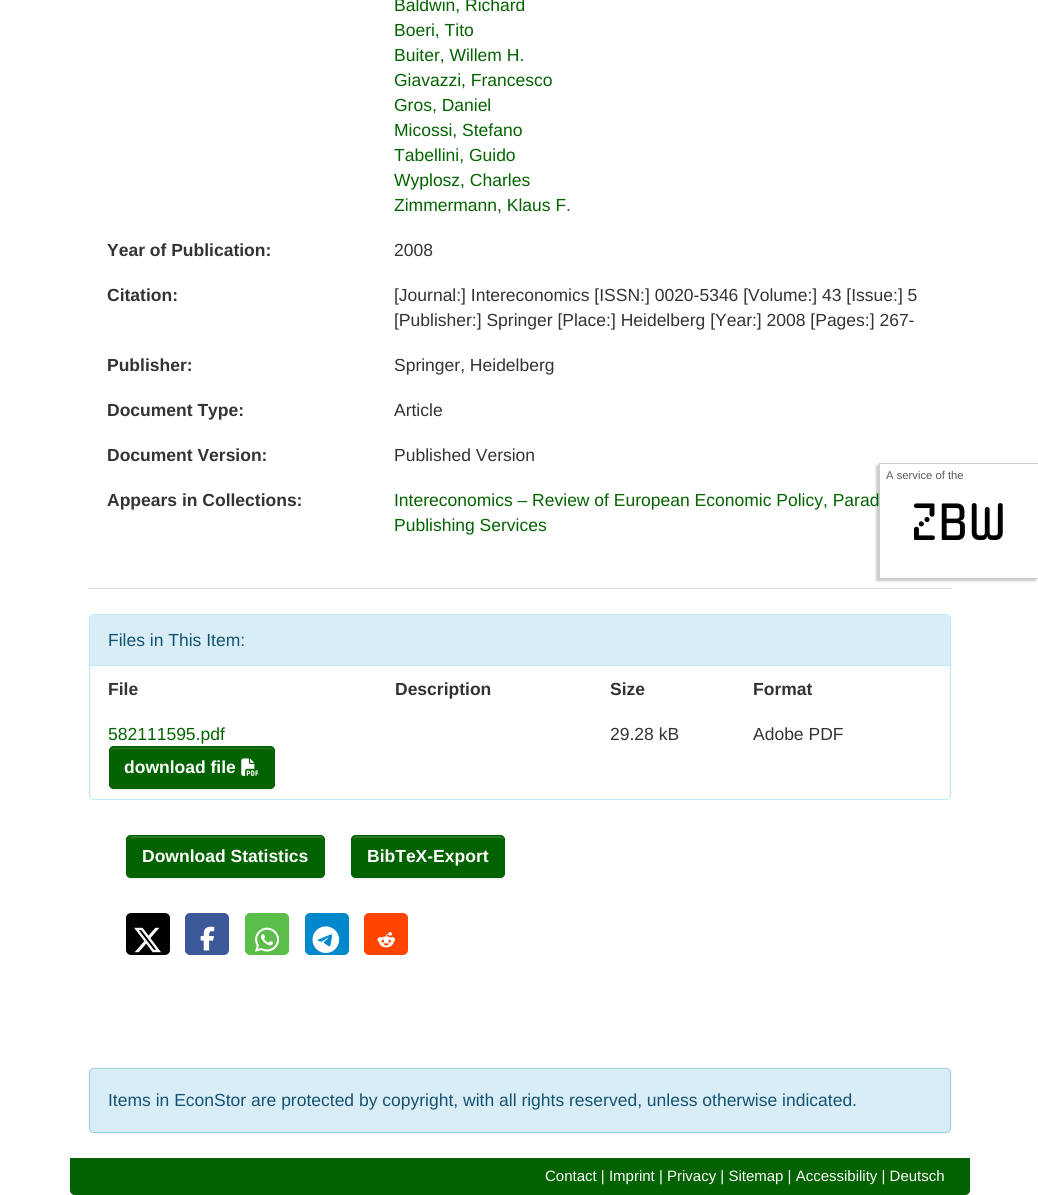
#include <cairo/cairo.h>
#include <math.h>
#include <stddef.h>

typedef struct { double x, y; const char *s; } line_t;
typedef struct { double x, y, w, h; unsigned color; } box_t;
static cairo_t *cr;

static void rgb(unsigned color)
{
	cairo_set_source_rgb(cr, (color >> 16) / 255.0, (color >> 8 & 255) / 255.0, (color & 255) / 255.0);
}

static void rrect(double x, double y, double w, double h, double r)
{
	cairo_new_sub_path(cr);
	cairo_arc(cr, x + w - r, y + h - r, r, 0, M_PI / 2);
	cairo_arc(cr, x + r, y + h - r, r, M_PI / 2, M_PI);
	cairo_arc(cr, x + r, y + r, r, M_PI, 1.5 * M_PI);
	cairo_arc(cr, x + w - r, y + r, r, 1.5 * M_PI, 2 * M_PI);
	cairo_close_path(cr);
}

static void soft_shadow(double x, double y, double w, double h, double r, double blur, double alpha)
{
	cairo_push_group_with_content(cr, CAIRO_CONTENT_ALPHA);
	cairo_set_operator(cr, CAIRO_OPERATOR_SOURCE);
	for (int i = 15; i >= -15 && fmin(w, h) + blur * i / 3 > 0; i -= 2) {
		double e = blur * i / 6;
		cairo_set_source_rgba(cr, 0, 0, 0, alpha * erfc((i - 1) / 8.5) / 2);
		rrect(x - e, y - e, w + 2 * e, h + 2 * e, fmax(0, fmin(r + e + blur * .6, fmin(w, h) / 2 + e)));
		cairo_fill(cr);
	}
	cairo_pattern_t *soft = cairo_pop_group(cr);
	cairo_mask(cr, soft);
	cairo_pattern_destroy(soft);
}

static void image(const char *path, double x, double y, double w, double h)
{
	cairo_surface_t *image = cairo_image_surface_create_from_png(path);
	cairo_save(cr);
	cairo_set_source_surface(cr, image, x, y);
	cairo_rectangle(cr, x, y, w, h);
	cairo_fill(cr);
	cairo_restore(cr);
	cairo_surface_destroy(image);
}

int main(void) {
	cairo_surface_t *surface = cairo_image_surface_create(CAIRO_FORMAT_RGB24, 1038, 1195);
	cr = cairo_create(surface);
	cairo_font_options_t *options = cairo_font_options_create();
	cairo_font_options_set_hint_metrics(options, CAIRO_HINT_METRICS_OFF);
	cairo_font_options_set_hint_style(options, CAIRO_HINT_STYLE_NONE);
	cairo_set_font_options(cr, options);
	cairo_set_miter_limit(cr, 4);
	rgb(0xffffff);
	cairo_paint(cr);
	rgb(0xdddddd);
	cairo_rectangle(cr, 89, 588, 862, 1);
	cairo_fill(cr);
	rrect(89.5, 614.5, 861, 185, 4.5);
	rgb(0xbce8f1);
	cairo_set_line_width(cr, 1);
	cairo_stroke(cr);
	rgb(0xd9edf7);
	cairo_new_path(cr);
	cairo_move_to(cr, 94, 615);
	cairo_line_to(cr, 946, 615);
	cairo_curve_to(cr, 948, 615, 950, 617, 950, 619);
	cairo_line_to(cr, 950, 666);
	cairo_line_to(cr, 90, 666);
	cairo_line_to(cr, 90, 619);
	cairo_curve_to(cr, 90, 617, 92, 615, 94, 615);
	cairo_close_path(cr);
	cairo_fill(cr);
	rgb(0xbce8f1);
	cairo_rectangle(cr, 90, 665, 860, 1);
	cairo_fill(cr);
	rgb(0x000000);
	soft_shadow(109, 748, 166, 42, 5, 0.5, 0.07);
	rgb(0x036300);
	rrect(109, 746, 166, 43, 5);
	cairo_fill(cr);
	rgb(0x297a26);
	cairo_new_path(cr);
	cairo_move_to(cr, 114, 749);
	cairo_line_to(cr, 270, 749);
	cairo_curve_to(cr, 272, 749, 274, 750, 274, 752);
	cairo_curve_to(cr, 274, 750, 272, 748, 270, 748);
	cairo_line_to(cr, 114, 748);
	cairo_curve_to(cr, 112, 748, 110, 750, 110, 752);
	cairo_curve_to(cr, 110, 750, 112, 749, 114, 749);
	cairo_close_path(cr);
	cairo_fill(cr);
	rrect(109.5, 746.5, 165, 42, 4.5);
	rgb(0x036300);
	cairo_stroke(cr);
	image("img/1.png", 241, 758, 18, 18);
	rgb(0x000000);
	soft_shadow(126, 836, 199, 43, 5, 0.5, 0.07);
	rgb(0x036300);
	rrect(126, 835, 199, 43, 5);
	cairo_fill(cr);
	rgb(0x297a26);
	cairo_new_path(cr);
	cairo_move_to(cr, 131, 838);
	cairo_line_to(cr, 320, 838);
	cairo_curve_to(cr, 322, 838, 324, 839, 324, 841);
	cairo_line_to(cr, 324, 840);
	cairo_curve_to(cr, 324, 838, 322, 836, 320, 836);
	cairo_line_to(cr, 132, 836);
	cairo_curve_to(cr, 130, 836, 128, 838, 128, 840);
	cairo_line_to(cr, 128, 841);
	cairo_curve_to(cr, 128, 839, 129, 838, 131, 838);
	cairo_close_path(cr);
	cairo_fill(cr);
	rrect(126.5, 835.5, 198, 42, 4.5);
	rgb(0x036300);
	cairo_stroke(cr);
	rgb(0x000000);
	soft_shadow(351, 836, 154, 43, 5, 0.5, 0.07);
	rgb(0x036300);
	rrect(351, 835, 154, 43, 5);
	cairo_fill(cr);
	rgb(0x297a26);
	cairo_new_path(cr);
	cairo_move_to(cr, 356, 838);
	cairo_line_to(cr, 500, 838);
	cairo_curve_to(cr, 502, 838, 504, 839, 504, 841);
	cairo_line_to(cr, 504, 840);
	cairo_curve_to(cr, 504, 838, 502, 836, 500, 836);
	cairo_line_to(cr, 357, 836);
	cairo_curve_to(cr, 355, 836, 354, 837, 353, 839);
	cairo_close_path(cr);
	cairo_fill(cr);
	rrect(351.5, 835.5, 153, 42, 4.5);
	rgb(0x036300);
	cairo_stroke(cr);
	rgb(0x000000);
	rrect(126, 913, 44, 42, 5);
	cairo_fill(cr);
	image("img/2.png", 134, 927, 27, 26);
	rgb(0x3b5998);
	rrect(185, 913, 44, 42, 5);
	cairo_fill(cr);
	image("img/3.png", 200, 926, 15, 25);
	rgb(0x5cbe4a);
	rrect(245, 913, 44, 42, 5);
	cairo_fill(cr);
	image("img/4.png", 255, 927, 25, 25);
	rgb(0x0088cc);
	rrect(305, 913, 44, 42, 5);
	cairo_fill(cr);
	image("img/5.png", 312, 926, 28, 27);
	rgb(0xff4500);
	rrect(364, 913, 44, 42, 5);
	cairo_fill(cr);
	image("img/6.png", 377, 932, 18, 16);
	rgb(0x000000);
	soft_shadow(89, 1069, 862, 65, 5, 1, 0.05);
	rgb(0xd9edf7);
	rrect(89, 1068, 862, 65, 5);
	cairo_fill(cr);
	rgb(0xe3f2f9);
	cairo_new_path(cr);
	cairo_move_to(cr, 94, 1070);
	cairo_line_to(cr, 946, 1070);
	cairo_curve_to(cr, 948, 1070, 950, 1072, 950, 1074);
	cairo_curve_to(cr, 950, 1071, 949, 1069, 946, 1069);
	cairo_line_to(cr, 94, 1069);
	cairo_curve_to(cr, 91, 1069, 90, 1071, 90, 1074);
	cairo_curve_to(cr, 90, 1072, 92, 1070, 94, 1070);
	cairo_close_path(cr);
	cairo_fill(cr);
	rrect(89.5, 1068.5, 861, 64, 4.5);
	rgb(0x9acfea);
	cairo_stroke(cr);
	rgb(0xcccccc);
	soft_shadow(876, 465, 160, 116, 0, 1, 1);
	{
		static const box_t items[] = {
			{880, 464, 158, 114, 0xffffff},
			{879, 463, 159, 1, 0xcccccc},
			{1034, 578, 4, 1, 0xcccccc},
			{879, 463, 1, 4, 0xcccccc},
		};
		for (size_t i = 0; i < sizeof items / sizeof *items; i++) {
			rgb(items[i].color);
			cairo_rectangle(cr, items[i].x, items[i].y, items[i].w, items[i].h);
			cairo_fill(cr);
		}
	}
	rgb(0x036300);
	cairo_new_path(cr);
	cairo_move_to(cr, 70, 1158);
	cairo_line_to(cr, 970, 1158);
	cairo_line_to(cr, 970, 1190);
	cairo_curve_to(cr, 970, 1193, 968, 1195, 965, 1195);
	cairo_line_to(cr, 75, 1195);
	cairo_curve_to(cr, 72, 1195, 70, 1193, 70, 1190);
	cairo_close_path(cr);
	cairo_fill(cr);
	cairo_select_font_face(cr, "Liberation Sans", CAIRO_FONT_SLANT_NORMAL, CAIRO_FONT_WEIGHT_NORMAL);
	cairo_set_font_size(cr, 17.5);
	{
		static const line_t items[] = {
			{394, 11, "Baldwin, Richard"},
			{394, 36, "Boeri, Tito"},
			{394, 61, "Buiter, Willem H."},
			{394, 86, "Giavazzi, Francesco"},
			{394, 111, "Gros, Daniel"},
			{394, 136, "Micossi, Stefano"},
			{394, 161, "Tabellini, Guido"},
			{394, 186, "Wyplosz, Charles"},
			{394, 211, "Zimmermann, Klaus F."},
		};
		for (size_t i = 0; i < sizeof items / sizeof *items; i++) {
			cairo_move_to(cr, items[i].x, items[i].y);
			cairo_show_text(cr, items[i].s);
		}
	}
	cairo_select_font_face(cr, "Liberation Sans", CAIRO_FONT_SLANT_NORMAL, CAIRO_FONT_WEIGHT_BOLD);
	rgb(0x333333);
	cairo_move_to(cr, 107, 256);
	cairo_show_text(cr, "Year of Publication:");
	cairo_select_font_face(cr, "Liberation Sans", CAIRO_FONT_SLANT_NORMAL, CAIRO_FONT_WEIGHT_NORMAL);
	cairo_move_to(cr, 394, 256);
	cairo_show_text(cr, "2008");
	cairo_select_font_face(cr, "Liberation Sans", CAIRO_FONT_SLANT_NORMAL, CAIRO_FONT_WEIGHT_BOLD);
	cairo_move_to(cr, 107, 301);
	cairo_show_text(cr, "Citation:");
	cairo_select_font_face(cr, "Liberation Sans", CAIRO_FONT_SLANT_NORMAL, CAIRO_FONT_WEIGHT_NORMAL);
	cairo_move_to(cr, 394, 301);
	cairo_show_text(cr, "[Journal:] Intereconomics [ISSN:] 0020-5346 [Volume:] 43 [Issue:] 5");
	cairo_move_to(cr, 394, 326);
	cairo_show_text(cr, "[Publisher:] Springer [Place:] Heidelberg [Year:] 2008 [Pages:] 267-");
	cairo_select_font_face(cr, "Liberation Sans", CAIRO_FONT_SLANT_NORMAL, CAIRO_FONT_WEIGHT_BOLD);
	cairo_move_to(cr, 107, 371);
	cairo_show_text(cr, "Publisher:");
	cairo_select_font_face(cr, "Liberation Sans", CAIRO_FONT_SLANT_NORMAL, CAIRO_FONT_WEIGHT_NORMAL);
	cairo_move_to(cr, 394, 371);
	cairo_show_text(cr, "Springer, Heidelberg");
	cairo_select_font_face(cr, "Liberation Sans", CAIRO_FONT_SLANT_NORMAL, CAIRO_FONT_WEIGHT_BOLD);
	cairo_move_to(cr, 107, 416);
	cairo_show_text(cr, "Document Type:");
	cairo_select_font_face(cr, "Liberation Sans", CAIRO_FONT_SLANT_NORMAL, CAIRO_FONT_WEIGHT_NORMAL);
	cairo_move_to(cr, 394, 416);
	cairo_show_text(cr, "Article");
	cairo_select_font_face(cr, "Liberation Sans", CAIRO_FONT_SLANT_NORMAL, CAIRO_FONT_WEIGHT_BOLD);
	cairo_move_to(cr, 107, 461);
	cairo_show_text(cr, "Document Version:");
	cairo_select_font_face(cr, "Liberation Sans", CAIRO_FONT_SLANT_NORMAL, CAIRO_FONT_WEIGHT_NORMAL);
	cairo_move_to(cr, 394, 461);
	cairo_show_text(cr, "Published Version");
	cairo_select_font_face(cr, "Liberation Sans", CAIRO_FONT_SLANT_NORMAL, CAIRO_FONT_WEIGHT_BOLD);
	cairo_move_to(cr, 107, 506);
	cairo_show_text(cr, "Appears in Collections:");
	cairo_select_font_face(cr, "Liberation Sans", CAIRO_FONT_SLANT_NORMAL, CAIRO_FONT_WEIGHT_NORMAL);
	rgb(0x036300);
	cairo_move_to(cr, 394, 506);
	cairo_show_text(cr, "Intereconomics – Review of European Economic Policy, Parad");
	cairo_move_to(cr, 394, 531);
	cairo_show_text(cr, "Publishing Services");
	rgb(0x135271);
	cairo_move_to(cr, 108, 646);
	cairo_show_text(cr, "Files in This Item:");
	cairo_select_font_face(cr, "Liberation Sans", CAIRO_FONT_SLANT_NORMAL, CAIRO_FONT_WEIGHT_BOLD);
	rgb(0x333333);
	{
		static const line_t items[] = {
			{108, 695, "File"},
			{395, 695, "Description"},
			{610, 695, "Size"},
			{753, 695, "Format"},
		};
		for (size_t i = 0; i < sizeof items / sizeof *items; i++) {
			cairo_move_to(cr, items[i].x, items[i].y);
			cairo_show_text(cr, items[i].s);
		}
	}
	cairo_select_font_face(cr, "Liberation Sans", CAIRO_FONT_SLANT_NORMAL, CAIRO_FONT_WEIGHT_NORMAL);
	rgb(0x036300);
	cairo_move_to(cr, 108, 740);
	cairo_show_text(cr, "582111595.pdf");
	cairo_select_font_face(cr, "Liberation Sans", CAIRO_FONT_SLANT_NORMAL, CAIRO_FONT_WEIGHT_BOLD);
	rgb(0xffffff);
	cairo_move_to(cr, 124, 773);
	cairo_show_text(cr, "download file");
	cairo_select_font_face(cr, "Liberation Sans", CAIRO_FONT_SLANT_NORMAL, CAIRO_FONT_WEIGHT_NORMAL);
	rgb(0x333333);
	cairo_move_to(cr, 610, 740);
	cairo_show_text(cr, "29.28 kB");
	cairo_move_to(cr, 753, 740);
	cairo_show_text(cr, "Adobe PDF");
	cairo_select_font_face(cr, "Liberation Sans", CAIRO_FONT_SLANT_NORMAL, CAIRO_FONT_WEIGHT_BOLD);
	rgb(0xffffff);
	cairo_move_to(cr, 142, 862);
	cairo_show_text(cr, "Download Statistics");
	cairo_move_to(cr, 367, 862);
	cairo_show_text(cr, "BibTeX-Export");
	cairo_select_font_face(cr, "Liberation Sans", CAIRO_FONT_SLANT_NORMAL, CAIRO_FONT_WEIGHT_NORMAL);
	rgb(0x135271);
	cairo_move_to(cr, 108, 1106);
	cairo_show_text(cr, "Items in EconStor are protected by copyright, with all rights reserved, unless otherwise indicated.");
	cairo_set_font_size(cr, 11.25);
	rgb(0x595959);
	cairo_move_to(cr, 886, 479);
	cairo_show_text(cr, "A service of the");
	cairo_select_font_face(cr, "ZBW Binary", CAIRO_FONT_SLANT_NORMAL, CAIRO_FONT_WEIGHT_NORMAL);
	cairo_set_font_size(cr, 50);
	rgb(0x000000);
	cairo_move_to(cr, 911, 540);
	cairo_show_text(cr, "zbw");
	cairo_select_font_face(cr, "Liberation Sans", CAIRO_FONT_SLANT_NORMAL, CAIRO_FONT_WEIGHT_NORMAL);
	cairo_set_font_size(cr, 15);
	rgb(0xffffff);
	cairo_move_to(cr, 545, 1181);
	cairo_show_text(cr, "Contact | Imprint | Privacy | Sitemap | Accessibility | Deutsch");
	cairo_surface_write_to_png(surface, "page.png");
	cairo_font_options_destroy(options);
	cairo_destroy(cr);
	cairo_surface_destroy(surface);
	return 0;
}
